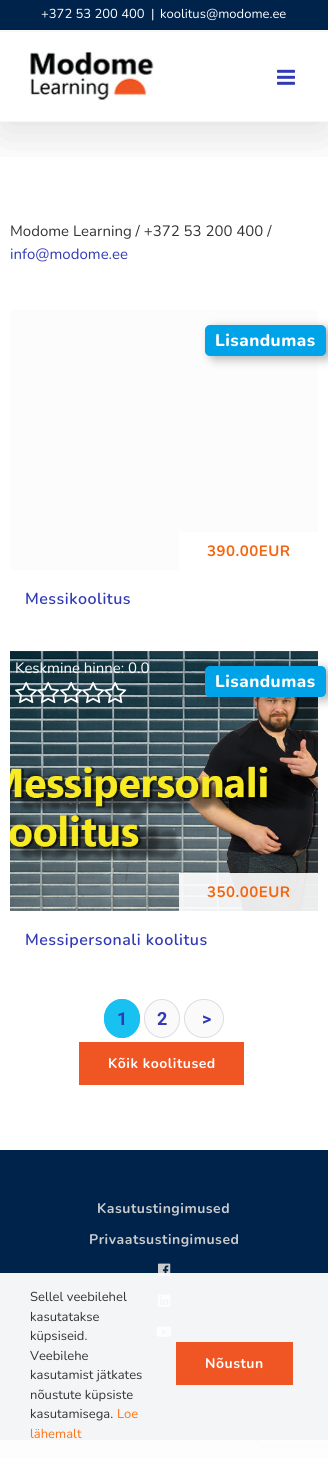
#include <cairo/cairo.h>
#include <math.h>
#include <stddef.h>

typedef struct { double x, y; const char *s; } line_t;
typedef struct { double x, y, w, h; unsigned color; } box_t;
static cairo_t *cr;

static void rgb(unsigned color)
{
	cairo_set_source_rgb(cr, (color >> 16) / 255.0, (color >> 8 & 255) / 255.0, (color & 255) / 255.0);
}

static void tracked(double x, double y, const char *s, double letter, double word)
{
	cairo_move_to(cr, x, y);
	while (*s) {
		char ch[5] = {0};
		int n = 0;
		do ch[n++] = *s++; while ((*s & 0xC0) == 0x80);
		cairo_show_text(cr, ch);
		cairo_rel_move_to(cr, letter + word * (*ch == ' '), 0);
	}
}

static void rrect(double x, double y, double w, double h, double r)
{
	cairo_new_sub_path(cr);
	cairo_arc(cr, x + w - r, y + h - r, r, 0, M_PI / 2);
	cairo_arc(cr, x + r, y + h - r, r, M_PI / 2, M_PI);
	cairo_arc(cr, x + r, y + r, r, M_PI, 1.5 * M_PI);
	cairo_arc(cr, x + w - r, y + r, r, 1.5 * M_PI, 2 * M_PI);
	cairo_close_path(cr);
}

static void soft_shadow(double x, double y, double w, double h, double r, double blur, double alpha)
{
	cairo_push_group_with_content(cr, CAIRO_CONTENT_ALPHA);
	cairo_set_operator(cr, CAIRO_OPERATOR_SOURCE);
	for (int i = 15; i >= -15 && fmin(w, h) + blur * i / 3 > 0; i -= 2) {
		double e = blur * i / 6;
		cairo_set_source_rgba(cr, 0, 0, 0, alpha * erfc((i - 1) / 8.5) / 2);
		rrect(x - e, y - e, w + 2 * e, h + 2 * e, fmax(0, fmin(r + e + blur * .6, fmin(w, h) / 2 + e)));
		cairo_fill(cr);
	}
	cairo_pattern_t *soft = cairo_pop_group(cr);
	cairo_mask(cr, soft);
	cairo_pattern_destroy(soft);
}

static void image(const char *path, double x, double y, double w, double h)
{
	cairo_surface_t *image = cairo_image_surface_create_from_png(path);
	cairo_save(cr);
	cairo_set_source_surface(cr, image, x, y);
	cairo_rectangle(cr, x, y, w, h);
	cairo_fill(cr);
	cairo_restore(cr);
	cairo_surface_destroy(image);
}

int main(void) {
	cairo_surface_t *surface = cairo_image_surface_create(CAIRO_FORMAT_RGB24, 328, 1459);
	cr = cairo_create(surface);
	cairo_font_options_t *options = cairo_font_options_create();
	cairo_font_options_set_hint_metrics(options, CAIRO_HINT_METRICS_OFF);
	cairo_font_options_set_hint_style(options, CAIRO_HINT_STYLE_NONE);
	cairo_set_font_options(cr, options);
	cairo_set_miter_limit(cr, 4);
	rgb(0xd7d6d6);
	cairo_paint(cr);
	rgb(0xffffff);
	cairo_rectangle(cr, 0, 32, 328, 1118);
	cairo_fill(cr);
	cairo_save(cr);
	cairo_rectangle(cr, 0, 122, 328, 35);
	cairo_clip(cr);
	rgb(0x000000);
	soft_shadow(2, 12, 324, 118, 0, 25, 0.14);
	cairo_restore(cr);
	{
		static const box_t items[] = {
			{0, 0, 328, 30, 0x00234c},
			{0, 30, 328, 2, 0xf7f7f7},
			{0, 121, 328, 1, 0xf7f7f7},
		};
		for (size_t i = 0; i < sizeof items / sizeof *items; i++) {
			rgb(items[i].color);
			cairo_rectangle(cr, items[i].x, items[i].y, items[i].w, items[i].h);
			cairo_fill(cr);
		}
	}
	image("img/1.png", 30, 52, 124, 48);
	image("img/2.png", 277, 69, 18, 16);
	rgb(0xfcfcfc);
	cairo_rectangle(cr, 10, 310, 308, 260);
	cairo_fill(cr);
	rgb(0x000000);
	soft_shadow(210, 328, 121, 31, 5, 5, 0.3);
	rgb(0x00a3e8);
	rrect(205, 325, 121, 31, 5);
	cairo_fill(cr);
	rgb(0xffffff);
	cairo_rectangle(cr, 179, 532, 139, 38);
	cairo_fill(cr);
	image("img/8.png", 10, 651, 308, 260);
	image("img/3.png", 15, 681, 23, 23);
	image("img/4.png", 37, 681, 23, 23);
	image("img/5.png", 60, 681, 23, 23);
	image("img/6.png", 82, 681, 23, 23);
	image("img/7.png", 104, 681, 23, 23);
	rgb(0x000000);
	soft_shadow(210, 669, 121, 31, 5, 5, 0.3);
	rgb(0x00a3e8);
	rrect(205, 666, 121, 31, 5);
	cairo_fill(cr);
	cairo_set_source_rgba(cr, 1, 1, 1, 0.9);
	cairo_rectangle(cr, 179, 873, 139, 38);
	cairo_fill(cr);
	rgb(0x18c1f0);
	cairo_new_path(cr);
	cairo_move_to(cr, 122, 999);
	cairo_curve_to(cr, 132, 999, 140, 1007.5, 140, 1018.5);
	cairo_curve_to(cr, 140, 1029.5, 132, 1038, 122, 1038);
	cairo_curve_to(cr, 112, 1038, 104, 1029.5, 104, 1018.5);
	cairo_curve_to(cr, 104, 1007.5, 112, 999, 122, 999);
	cairo_close_path(cr);
	cairo_fill(cr);
	cairo_new_path(cr);
	cairo_move_to(cr, 122, 999.5);
	cairo_curve_to(cr, 131.5, 999.5, 139.5, 1008, 139.5, 1018.5);
	cairo_curve_to(cr, 139.5, 1029, 131.5, 1037.5, 122, 1037.5);
	cairo_curve_to(cr, 112.5, 1037.5, 104.5, 1029, 104.5, 1018.5);
	cairo_curve_to(cr, 104.5, 1008, 112.5, 999.5, 122, 999.5);
	cairo_close_path(cr);
	cairo_set_line_width(cr, 1);
	cairo_stroke(cr);
	rgb(0xfafafa);
	cairo_new_path(cr);
	cairo_move_to(cr, 162, 999);
	cairo_curve_to(cr, 172, 999, 180, 1007.5, 180, 1018.5);
	cairo_curve_to(cr, 180, 1029.5, 172, 1038, 162, 1038);
	cairo_curve_to(cr, 152, 1038, 144, 1029.5, 144, 1018.5);
	cairo_curve_to(cr, 144, 1007.5, 152, 999, 162, 999);
	cairo_close_path(cr);
	cairo_fill(cr);
	cairo_new_path(cr);
	cairo_move_to(cr, 162, 999.5);
	cairo_curve_to(cr, 171.5, 999.5, 179.5, 1008, 179.5, 1018.5);
	cairo_curve_to(cr, 179.5, 1029, 171.5, 1037.5, 162, 1037.5);
	cairo_curve_to(cr, 152.5, 1037.5, 144.5, 1029, 144.5, 1018.5);
	cairo_curve_to(cr, 144.5, 1008, 152.5, 999.5, 162, 999.5);
	cairo_close_path(cr);
	rgb(0xdddddd);
	cairo_stroke(cr);
	rgb(0xfafafa);
	rrect(184.5, 999.5, 39, 38, 19);
	cairo_fill_preserve(cr);
	rgb(0xdddddd);
	cairo_stroke(cr);
	rgb(0xef5623);
	cairo_rectangle(cr, 79, 1042, 165, 43);
	cairo_fill(cr);
	rgb(0x00234c);
	cairo_rectangle(cr, 0, 1150, 328, 238);
	cairo_fill(cr);
	image("img/9.png", 158, 1263, 13, 13);
	image("img/10.png", 158, 1294, 13, 13);
	image("img/11.png", 156, 1326, 16, 11);
	cairo_save(cr);
	cairo_set_fill_rule(cr, CAIRO_FILL_RULE_EVEN_ODD);
	cairo_new_path(cr);
	cairo_move_to(cr, 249, 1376);
	cairo_line_to(cr, 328, 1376);
	cairo_line_to(cr, 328, 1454);
	cairo_line_to(cr, 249, 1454);
	cairo_close_path(cr);
	cairo_move_to(cr, 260, 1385);
	cairo_line_to(cr, 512, 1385);
	cairo_curve_to(cr, 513, 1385, 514, 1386, 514, 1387);
	cairo_line_to(cr, 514, 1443);
	cairo_curve_to(cr, 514, 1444, 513, 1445, 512, 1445);
	cairo_line_to(cr, 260, 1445);
	cairo_curve_to(cr, 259, 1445, 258, 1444, 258, 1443);
	cairo_line_to(cr, 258, 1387);
	cairo_curve_to(cr, 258, 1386, 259, 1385, 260, 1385);
	cairo_close_path(cr);
	cairo_clip(cr);
	rgb(0x808080);
	soft_shadow(258, 1385, 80, 60, 2, 2.5, 1);
	cairo_restore(cr);
	rgb(0x002044);
	cairo_rectangle(cr, 0, 1388, 328, 52);
	cairo_fill(cr);
	cairo_set_source_rgba(cr, 1, 1, 1, 0.95);
	cairo_rectangle(cr, 0, 1273, 328, 186);
	cairo_fill(cr);
	rgb(0xef5623);
	cairo_rectangle(cr, 176, 1342, 117, 43);
	cairo_fill(cr);
	cairo_select_font_face(cr, "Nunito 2 ExtraLight", CAIRO_FONT_SLANT_NORMAL, CAIRO_FONT_WEIGHT_NORMAL);
	cairo_set_font_size(cr, 13);
	rgb(0xffffff);
	{
		static const line_t items[] = {
			{41, 18, "+372 53 200 400"},
			{151, 18, "|"},
			{160, 18, "koolitus@modome.ee"},
		};
		for (size_t i = 0; i < sizeof items / sizeof *items; i++) {
			cairo_move_to(cr, items[i].x, items[i].y);
			cairo_show_text(cr, items[i].s);
		}
	}
	cairo_set_font_size(cr, 15);
	rgb(0x333333);
	cairo_move_to(cr, 10, 236);
	cairo_show_text(cr, "Modome Learning / +372 53 200 400 /");
	rgb(0x3039b6);
	cairo_move_to(cr, 10, 259);
	cairo_show_text(cr, "info@modome.ee");
	cairo_select_font_face(cr, "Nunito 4 ExtraLight", CAIRO_FONT_SLANT_NORMAL, CAIRO_FONT_WEIGHT_NORMAL);
	cairo_set_font_size(cr, 17);
	rgb(0xffffff);
	tracked(215, 346, "Lisandumas", 0.5, 0);
	cairo_select_font_face(cr, "Nunito ExtraLight", CAIRO_FONT_SLANT_NORMAL, CAIRO_FONT_WEIGHT_NORMAL);
	cairo_set_font_size(cr, 15);
	rgb(0xf36510);
	tracked(207, 556, "390.00EUR", 0.5, 0);
	cairo_select_font_face(cr, "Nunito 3 ExtraLight", CAIRO_FONT_SLANT_NORMAL, CAIRO_FONT_WEIGHT_NORMAL);
	cairo_set_font_size(cr, 16);
	rgb(0x3039b6);
	tracked(25, 604, "Messikoolitus", 0.5, 0);
	cairo_select_font_face(cr, "Nunito 2 ExtraLight", CAIRO_FONT_SLANT_NORMAL, CAIRO_FONT_WEIGHT_NORMAL);
	cairo_set_font_size(cr, 15);
	rgb(0xffffff);
	cairo_move_to(cr, 15, 673);
	cairo_show_text(cr, "Keskmine hinne: 0.0");
	cairo_select_font_face(cr, "Nunito 4 ExtraLight", CAIRO_FONT_SLANT_NORMAL, CAIRO_FONT_WEIGHT_NORMAL);
	cairo_set_font_size(cr, 17);
	tracked(215, 687, "Lisandumas", 0.5, 0);
	cairo_select_font_face(cr, "Nunito ExtraLight", CAIRO_FONT_SLANT_NORMAL, CAIRO_FONT_WEIGHT_NORMAL);
	cairo_set_font_size(cr, 15);
	rgb(0xf36510);
	tracked(207, 897, "350.00EUR", 0.5, 0);
	cairo_select_font_face(cr, "Nunito 3 ExtraLight", CAIRO_FONT_SLANT_NORMAL, CAIRO_FONT_WEIGHT_NORMAL);
	cairo_set_font_size(cr, 16);
	rgb(0x3039b6);
	tracked(25, 945, "Messipersonali koolitus", 0.5, 0);
	cairo_select_font_face(cr, "Roboto", CAIRO_FONT_SLANT_NORMAL, CAIRO_FONT_WEIGHT_BOLD);
	cairo_set_font_size(cr, 18);
	{
		static const line_t items[] = {
			{117, 1025, "1"},
			{157, 1025, "2"},
			{202, 1025, ">"},
		};
		for (size_t i = 0; i < sizeof items / sizeof *items; i++) {
			cairo_move_to(cr, items[i].x, items[i].y);
			cairo_show_text(cr, items[i].s);
		}
	}
	cairo_select_font_face(cr, "Nunito ExtraLight", CAIRO_FONT_SLANT_NORMAL, CAIRO_FONT_WEIGHT_NORMAL);
	cairo_set_font_size(cr, 14);
	rgb(0xffffff);
	tracked(108, 1068, "Kõik koolitused", 0.5, 0);
	rgb(0xcccccc);
	tracked(97, 1213, "Kasutustingimused", 0.5, 0);
	tracked(89, 1244, "Privaatsustingimused", 0.5, 0);
	cairo_select_font_face(cr, "Nunito 2 ExtraLight", CAIRO_FONT_SLANT_NORMAL, CAIRO_FONT_WEIGHT_NORMAL);
	cairo_set_font_size(cr, 13);
	rgb(0x333333);
	{
		static const line_t items[] = {
			{30, 1301, "Sellel veebilehel"},
			{30, 1321, "kasutatakse"},
			{30, 1340, "küpsiseid."},
			{30, 1360, "Veebilehe"},
			{30, 1379, "kasutamist jätkates"},
			{30, 1399, "nõustute küpsiste"},
			{30, 1418, "kasutamisega."},
		};
		for (size_t i = 0; i < sizeof items / sizeof *items; i++) {
			cairo_move_to(cr, items[i].x, items[i].y);
			cairo_show_text(cr, items[i].s);
		}
	}
	rgb(0xff7315);
	cairo_move_to(cr, 117, 1418);
	cairo_show_text(cr, "Loe");
	cairo_move_to(cr, 30, 1438);
	cairo_show_text(cr, "lähemalt");
	cairo_select_font_face(cr, "Nunito ExtraLight", CAIRO_FONT_SLANT_NORMAL, CAIRO_FONT_WEIGHT_NORMAL);
	cairo_set_font_size(cr, 14);
	rgb(0xffffff);
	tracked(205, 1368, "Nõustun", 0.5, 0);
	cairo_surface_write_to_png(surface, "page.png");
	cairo_font_options_destroy(options);
	cairo_destroy(cr);
	cairo_surface_destroy(surface);
	return 0;
}
